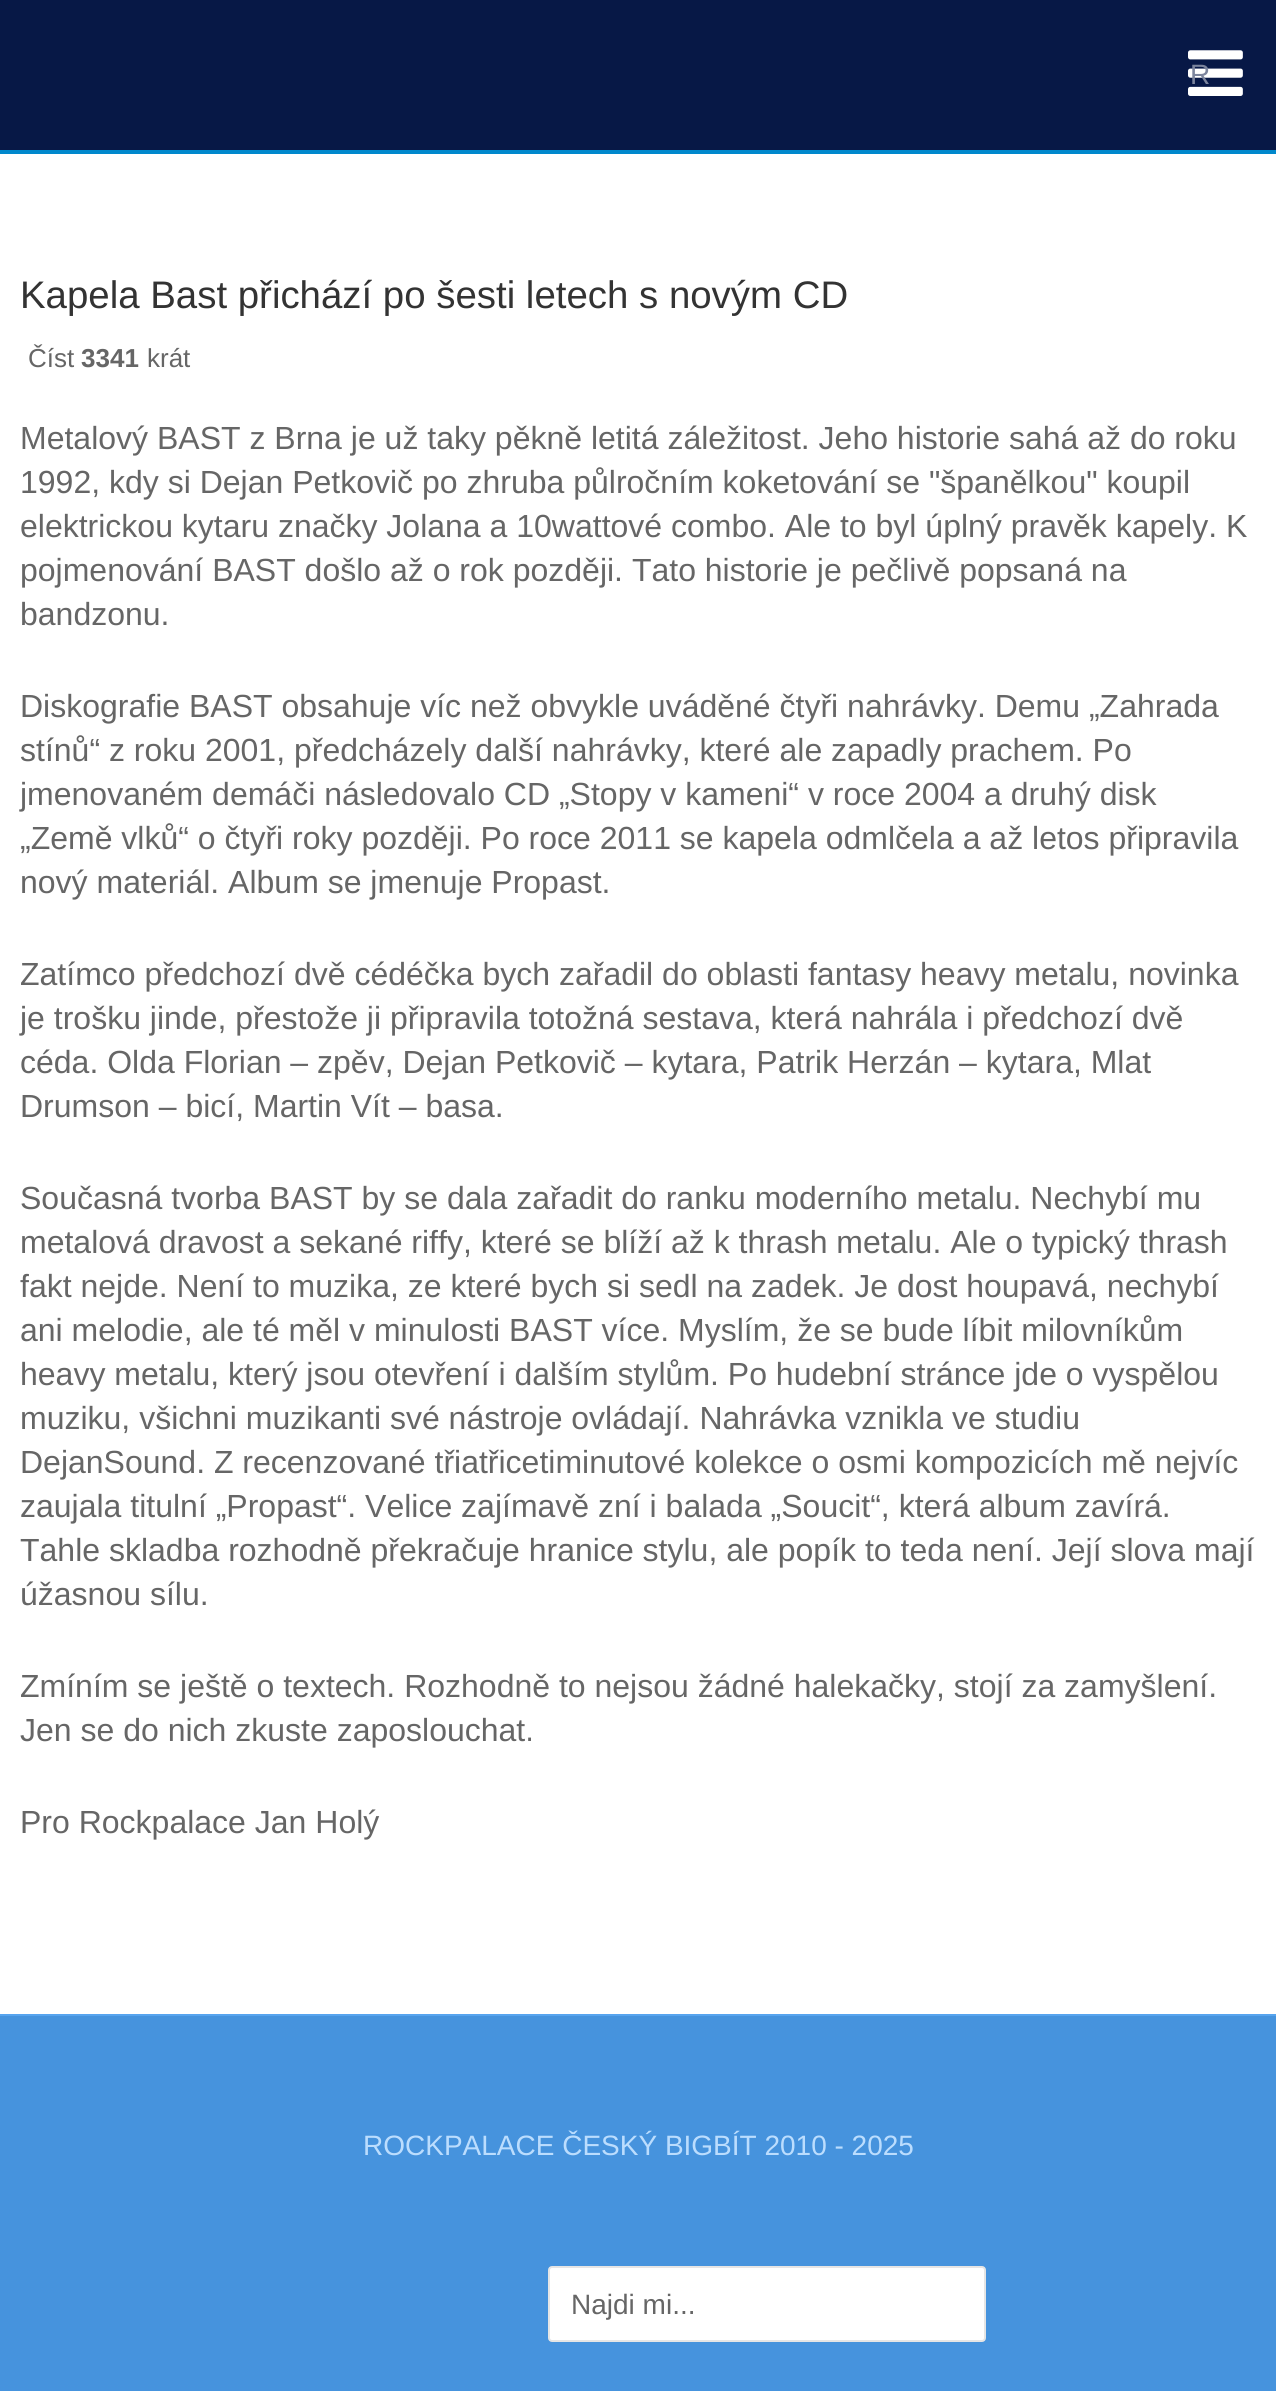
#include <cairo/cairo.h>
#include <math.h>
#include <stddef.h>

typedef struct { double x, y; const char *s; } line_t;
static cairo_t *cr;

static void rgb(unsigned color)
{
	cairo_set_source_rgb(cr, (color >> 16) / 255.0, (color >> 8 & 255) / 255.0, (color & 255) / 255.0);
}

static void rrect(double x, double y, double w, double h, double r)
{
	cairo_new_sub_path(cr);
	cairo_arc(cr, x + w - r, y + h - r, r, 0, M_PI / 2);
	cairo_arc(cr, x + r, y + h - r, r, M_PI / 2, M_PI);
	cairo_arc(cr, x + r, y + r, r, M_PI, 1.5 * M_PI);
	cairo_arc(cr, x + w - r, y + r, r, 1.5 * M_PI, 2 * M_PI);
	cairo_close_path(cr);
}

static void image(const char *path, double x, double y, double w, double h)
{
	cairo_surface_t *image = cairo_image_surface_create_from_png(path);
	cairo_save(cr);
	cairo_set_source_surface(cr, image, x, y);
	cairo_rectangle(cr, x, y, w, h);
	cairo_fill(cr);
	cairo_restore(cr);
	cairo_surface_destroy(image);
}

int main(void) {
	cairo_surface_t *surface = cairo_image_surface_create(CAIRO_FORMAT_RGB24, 1276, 2391);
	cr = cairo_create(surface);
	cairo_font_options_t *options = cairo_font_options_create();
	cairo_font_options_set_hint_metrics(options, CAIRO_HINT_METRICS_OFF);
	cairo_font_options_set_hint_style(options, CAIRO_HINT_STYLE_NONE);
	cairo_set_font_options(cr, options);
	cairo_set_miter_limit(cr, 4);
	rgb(0x4693dd);
	cairo_paint(cr);
	rgb(0x071846);
	cairo_rectangle(cr, 0, 0, 1276, 150);
	cairo_fill(cr);
	rgb(0x0088cc);
	cairo_rectangle(cr, 0, 150, 1276, 4);
	cairo_fill(cr);
	image("img/1.png", 1188, 50, 55, 46);
	rgb(0xffffff);
	cairo_rectangle(cr, 0, 154, 1276, 1860);
	cairo_fill(cr);
	rgb(0x57a4ee);
	cairo_rectangle(cr, 0, 2014, 1276, 2);
	cairo_fill(cr);
	rgb(0xffffff);
	rrect(549, 2267, 436, 74, 3);
	cairo_fill_preserve(cr);
	rgb(0xe5e5e5);
	cairo_stroke(cr);
	cairo_select_font_face(cr, "Liberation Sans", CAIRO_FONT_SLANT_NORMAL, CAIRO_FONT_WEIGHT_NORMAL);
	cairo_set_font_size(cr, 28);
	rgb(0x7c859d);
	cairo_move_to(cr, 1190, 84);
	cairo_show_text(cr, "R");
	cairo_set_font_size(cr, 38.4);
	rgb(0x333333);
	cairo_move_to(cr, 20, 308);
	cairo_show_text(cr, "Kapela Bast přichází po šesti letech s novým CD");
	cairo_set_font_size(cr, 26);
	rgb(0x666666);
	cairo_move_to(cr, 28, 367);
	cairo_show_text(cr, "Číst");
	cairo_select_font_face(cr, "Liberation Sans", CAIRO_FONT_SLANT_NORMAL, CAIRO_FONT_WEIGHT_BOLD);
	cairo_move_to(cr, 81, 367);
	cairo_show_text(cr, "3341");
	cairo_select_font_face(cr, "Liberation Sans", CAIRO_FONT_SLANT_NORMAL, CAIRO_FONT_WEIGHT_NORMAL);
	cairo_move_to(cr, 147, 367);
	cairo_show_text(cr, "krát");
	cairo_set_font_size(cr, 32);
	{
		static const line_t items[] = {
			{20, 449, "Metalový BAST z Brna je už taky pěkně letitá záležitost. Jeho historie sahá až do roku"},
			{20, 493, "1992, kdy si Dejan Petkovič po zhruba půlročním koketování se \"španělkou\" koupil"},
			{20, 537, "elektrickou kytaru značky Jolana a 10wattové combo. Ale to byl úplný pravěk kapely. K"},
			{20, 581, "pojmenování BAST došlo až o rok později. Tato historie je pečlivě popsaná na"},
			{20, 625, "bandzonu."},
			{20, 717, "Diskografie BAST obsahuje víc než obvykle uváděné čtyři nahrávky. Demu „Zahrada"},
			{20, 761, "stínů“ z roku 2001, předcházely další nahrávky, které ale zapadly prachem. Po"},
			{20, 805, "jmenovaném demáči následovalo CD „Stopy v kameni“ v roce 2004 a druhý disk"},
			{20, 849, "„Země vlků“ o čtyři roky později. Po roce 2011 se kapela odmlčela a až letos připravila"},
			{20, 893, "nový materiál. Album se jmenuje Propast."},
			{20, 985, "Zatímco předchozí dvě cédéčka bych zařadil do oblasti fantasy heavy metalu, novinka"},
			{20, 1029, "je trošku jinde, přestože ji připravila totožná sestava, která nahrála i předchozí dvě"},
			{20, 1073, "céda. Olda Florian – zpěv, Dejan Petkovič – kytara, Patrik Herzán – kytara, Mlat"},
			{20, 1117, "Drumson – bicí, Martin Vít – basa."},
			{20, 1209, "Současná tvorba BAST by se dala zařadit do ranku moderního metalu. Nechybí mu"},
			{20, 1253, "metalová dravost a sekané riffy, které se blíží až k thrash metalu. Ale o typický thrash"},
			{20, 1297, "fakt nejde. Není to muzika, ze které bych si sedl na zadek. Je dost houpavá, nechybí"},
			{20, 1341, "ani melodie, ale té měl v minulosti BAST více. Myslím, že se bude líbit milovníkům"},
			{20, 1385, "heavy metalu, který jsou otevření i dalším stylům. Po hudební stránce jde o vyspělou"},
			{20, 1429, "muziku, všichni muzikanti své nástroje ovládají. Nahrávka vznikla ve studiu"},
			{20, 1473, "DejanSound. Z recenzované třiatřicetiminutové kolekce o osmi kompozicích mě nejvíc"},
			{20, 1517, "zaujala titulní „Propast“. Velice zajímavě zní i balada „Soucit“, která album zavírá."},
			{20, 1561, "Tahle skladba rozhodně překračuje hranice stylu, ale popík to teda není. Její slova mají"},
			{20, 1605, "úžasnou sílu."},
			{20, 1697, "Zmíním se ještě o textech. Rozhodně to nejsou žádné halekačky, stojí za zamyšlení."},
			{20, 1741, "Jen se do nich zkuste zaposlouchat."},
			{20, 1833, "Pro Rockpalace Jan Holý"},
		};
		for (size_t i = 0; i < sizeof items / sizeof *items; i++) {
			cairo_move_to(cr, items[i].x, items[i].y);
			cairo_show_text(cr, items[i].s);
		}
	}
	cairo_set_font_size(cr, 28);
	rgb(0xbbddfe);
	cairo_move_to(cr, 363, 2155);
	cairo_show_text(cr, "ROCKPALACE ČESKÝ BIGBÍT 2010 - 2025");
	rgb(0x666666);
	cairo_move_to(cr, 571, 2314);
	cairo_show_text(cr, "Najdi mi...");
	cairo_surface_write_to_png(surface, "page.png");
	cairo_font_options_destroy(options);
	cairo_destroy(cr);
	cairo_surface_destroy(surface);
	return 0;
}
